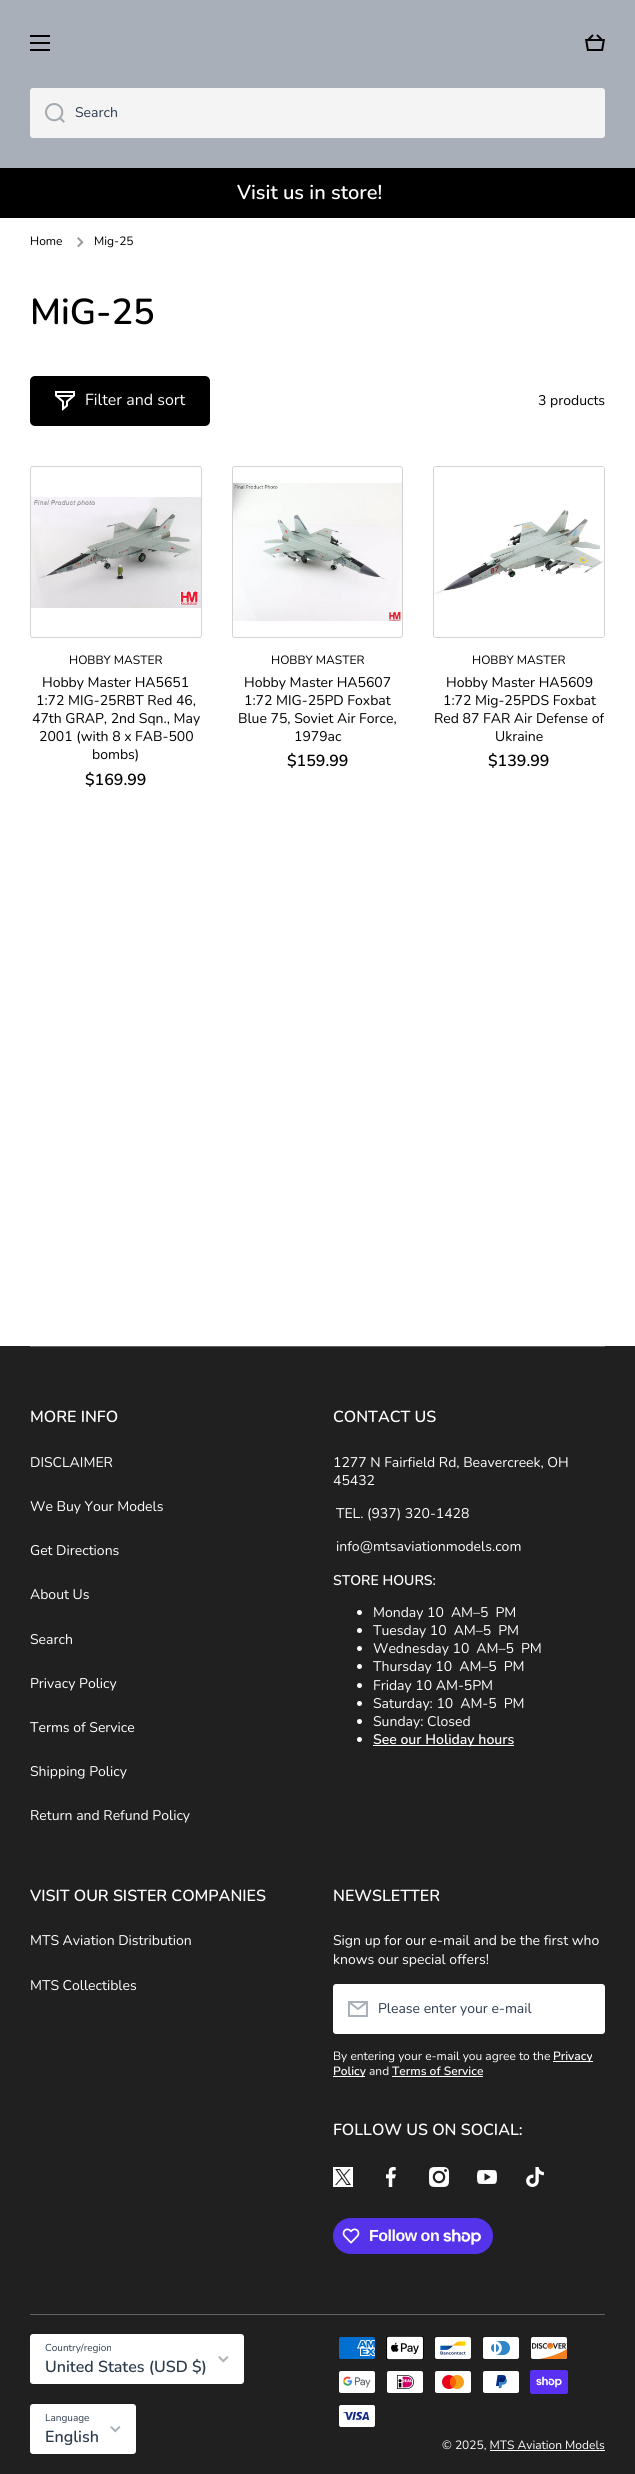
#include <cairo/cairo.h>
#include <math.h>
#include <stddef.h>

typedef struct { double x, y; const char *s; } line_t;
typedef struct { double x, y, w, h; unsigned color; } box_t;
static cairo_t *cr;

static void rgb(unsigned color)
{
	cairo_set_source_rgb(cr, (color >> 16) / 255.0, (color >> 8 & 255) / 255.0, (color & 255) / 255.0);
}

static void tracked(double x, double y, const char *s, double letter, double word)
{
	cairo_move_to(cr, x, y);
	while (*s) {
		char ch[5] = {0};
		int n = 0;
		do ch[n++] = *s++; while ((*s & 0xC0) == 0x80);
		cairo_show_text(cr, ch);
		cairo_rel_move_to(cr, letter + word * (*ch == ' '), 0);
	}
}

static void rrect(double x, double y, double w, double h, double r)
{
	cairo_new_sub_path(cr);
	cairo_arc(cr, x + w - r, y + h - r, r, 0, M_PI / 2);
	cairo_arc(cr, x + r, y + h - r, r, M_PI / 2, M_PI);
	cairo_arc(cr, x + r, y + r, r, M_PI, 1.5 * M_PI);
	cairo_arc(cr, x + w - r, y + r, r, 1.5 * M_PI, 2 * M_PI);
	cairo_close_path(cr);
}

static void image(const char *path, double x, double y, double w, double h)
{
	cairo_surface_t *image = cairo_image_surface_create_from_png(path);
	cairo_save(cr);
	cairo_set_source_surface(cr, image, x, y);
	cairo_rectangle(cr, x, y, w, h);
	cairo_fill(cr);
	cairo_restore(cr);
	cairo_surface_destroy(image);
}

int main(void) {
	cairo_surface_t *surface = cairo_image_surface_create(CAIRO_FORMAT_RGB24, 635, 2474);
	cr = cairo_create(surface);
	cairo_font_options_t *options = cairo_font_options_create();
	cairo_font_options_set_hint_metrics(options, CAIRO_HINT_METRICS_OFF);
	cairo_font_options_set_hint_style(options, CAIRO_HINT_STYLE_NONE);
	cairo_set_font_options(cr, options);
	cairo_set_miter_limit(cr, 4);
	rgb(0xffffff);
	cairo_paint(cr);
	{
		static const box_t items[] = {
			{0, 0, 635, 168, 0xa8afb8},
			{30, 35, 20, 2, 0x000000},
			{30, 42, 20, 2, 0x000000},
			{30, 49, 20, 2, 0x000000},
		};
		for (size_t i = 0; i < sizeof items / sizeof *items; i++) {
			rgb(items[i].color);
			cairo_rectangle(cr, items[i].x, items[i].y, items[i].w, items[i].h);
			cairo_fill(cr);
		}
	}
	image("img/1.png", 585, 34, 20, 17);
	rgb(0xf4f4f4);
	rrect(30, 88, 575, 50, 3);
	cairo_fill(cr);
	image("img/2.png", 45, 103, 20, 20);
	rgb(0x000000);
	cairo_rectangle(cr, 0, 168, 635, 50);
	cairo_fill(cr);
	image("img/3.png", 77, 237, 7, 11);
	rrect(30, 376, 180, 50, 5);
	cairo_fill(cr);
	image("img/4.png", 55, 391, 20, 20);
	rrect(30.5, 466.5, 171, 171, 2.5);
	rgb(0xd3d3d3);
	cairo_set_line_width(cr, 1);
	cairo_stroke(cr);
	image("img/5.png", 31, 497, 170, 111);
	rrect(232.5, 466.5, 170, 171, 2.5);
	cairo_stroke(cr);
	image("img/6.png", 233, 483, 169, 138);
	rrect(433.5, 466.5, 171, 171, 2.5);
	cairo_stroke(cr);
	image("img/7.png", 434, 467, 170, 170);
	rgb(0x202020);
	cairo_rectangle(cr, 0, 1346, 635, 1128);
	cairo_fill(cr);
	rgb(0x636363);
	cairo_rectangle(cr, 30, 1346, 575, 1);
	cairo_fill(cr);
	rgb(0xffffff);
	cairo_arc(cr, 359.5, 1612.5, 2.5, 0, 2 * M_PI);
	cairo_fill(cr);
	cairo_arc(cr, 359.5, 1630.5, 2.5, 0, 2 * M_PI);
	cairo_fill(cr);
	cairo_arc(cr, 359.5, 1648.5, 2.5, 0, 2 * M_PI);
	cairo_fill(cr);
	cairo_arc(cr, 359.5, 1666.5, 2.5, 0, 2 * M_PI);
	cairo_fill(cr);
	cairo_arc(cr, 359.5, 1685.5, 2.5, 0, 2 * M_PI);
	cairo_fill(cr);
	cairo_arc(cr, 359.5, 1703.5, 2.5, 0, 2 * M_PI);
	cairo_fill(cr);
	cairo_arc(cr, 359.5, 1721.5, 2.5, 0, 2 * M_PI);
	cairo_fill(cr);
	cairo_arc(cr, 359.5, 1739.5, 2.5, 0, 2 * M_PI);
	cairo_fill(cr);
	cairo_rectangle(cr, 373, 1745, 141, 1);
	cairo_fill(cr);
	rrect(333, 1984, 272, 50, 3);
	cairo_fill(cr);
	image("img/8.png", 348, 2001, 20, 16);
	{
		static const box_t items[] = {
			{553, 2061, 40, 1, 0xffffff},
			{333, 2076, 32, 1, 0xffffff},
			{392, 2076, 91, 1, 0xffffff},
		};
		for (size_t i = 0; i < sizeof items / sizeof *items; i++) {
			rgb(items[i].color);
			cairo_rectangle(cr, items[i].x, items[i].y, items[i].w, items[i].h);
			cairo_fill(cr);
		}
	}
	image("img/9.png", 333, 2167, 20, 20);
	image("img/10.png", 386, 2167, 10, 20);
	image("img/11.png", 429, 2167, 20, 20);
	image("img/12.png", 477, 2170, 20, 14);
	image("img/13.png", 526, 2167, 18, 20);
	rgb(0x5433eb);
	rrect(333, 2218, 160, 36, 18);
	cairo_fill(cr);
	image("img/14.png", 342, 2228, 18, 16);
	image("img/15.png", 443, 2229, 38, 16);
	rgb(0x636363);
	cairo_rectangle(cr, 30, 2314, 575, 1);
	cairo_fill(cr);
	rgb(0xffffff);
	rrect(30, 2334, 214, 50, 3);
	cairo_fill(cr);
	image("img/16.png", 218, 2356, 11, 7);
	rrect(30, 2404, 106, 50, 3);
	cairo_fill(cr);
	image("img/16.png", 110, 2426, 11, 7);
	image("img/17.png", 339, 2337, 36, 22);
	image("img/18.png", 386, 2336, 38, 24);
	image("img/19.png", 435, 2337, 36, 22);
	image("img/20.png", 483, 2337, 36, 22);
	image("img/21.png", 531, 2337, 36, 22);
	image("img/22.png", 339, 2371, 36, 22);
	image("img/23.png", 387, 2371, 36, 22);
	image("img/24.png", 435, 2371, 36, 22);
	image("img/25.png", 483, 2371, 36, 22);
	image("img/26.png", 530, 2370, 38, 24);
	image("img/27.png", 339, 2405, 36, 22);
	cairo_rectangle(cr, 490, 2450, 115, 1);
	cairo_fill(cr);
	cairo_select_font_face(cr, "Nunito", CAIRO_FONT_SLANT_NORMAL, CAIRO_FONT_WEIGHT_NORMAL);
	cairo_set_font_size(cr, 14);
	rgb(0x2c3c4d);
	cairo_move_to(cr, 75, 117);
	cairo_show_text(cr, "Search");
	cairo_select_font_face(cr, "Nunito SemiBold", CAIRO_FONT_SLANT_NORMAL, CAIRO_FONT_WEIGHT_NORMAL);
	cairo_set_font_size(cr, 20);
	rgb(0xffffff);
	cairo_move_to(cr, 237, 199);
	cairo_show_text(cr, "Visit us in store!");
	cairo_select_font_face(cr, "Nunito", CAIRO_FONT_SLANT_NORMAL, CAIRO_FONT_WEIGHT_NORMAL);
	cairo_set_font_size(cr, 12);
	rgb(0x000000);
	cairo_move_to(cr, 30, 245);
	cairo_show_text(cr, "Home");
	cairo_move_to(cr, 94, 245);
	cairo_show_text(cr, "Mig-25");
	cairo_select_font_face(cr, "Nunito SemiBold", CAIRO_FONT_SLANT_NORMAL, CAIRO_FONT_WEIGHT_NORMAL);
	cairo_set_font_size(cr, 36);
	cairo_move_to(cr, 30, 324);
	cairo_show_text(cr, "MiG-25");
	cairo_select_font_face(cr, "Nunito", CAIRO_FONT_SLANT_NORMAL, CAIRO_FONT_WEIGHT_NORMAL);
	cairo_set_font_size(cr, 16);
	rgb(0xffffff);
	cairo_move_to(cr, 85, 405);
	cairo_show_text(cr, "Filter and sort");
	cairo_set_font_size(cr, 14);
	rgb(0x000000);
	cairo_move_to(cr, 538, 405);
	cairo_show_text(cr, "3 products");
	cairo_set_font_size(cr, 12);
	cairo_move_to(cr, 69, 664);
	cairo_show_text(cr, "HOBBY MASTER");
	cairo_set_font_size(cr, 14);
	{
		static const line_t items[] = {
			{42, 687, "Hobby Master HA5651"},
			{36, 705, "1:72 MIG-25RBT Red 46,"},
			{32, 723, "47th GRAP, 2nd Sqn., May"},
			{39, 741, "2001 (with 8 x FAB-500"},
			{92, 759, "bombs)"},
		};
		for (size_t i = 0; i < sizeof items / sizeof *items; i++) {
			cairo_move_to(cr, items[i].x, items[i].y);
			cairo_show_text(cr, items[i].s);
		}
	}
	cairo_select_font_face(cr, "Nunito SemiBold", CAIRO_FONT_SLANT_NORMAL, CAIRO_FONT_WEIGHT_NORMAL);
	cairo_set_font_size(cr, 16);
	cairo_move_to(cr, 85, 785);
	cairo_show_text(cr, "$169.99");
	cairo_select_font_face(cr, "Nunito", CAIRO_FONT_SLANT_NORMAL, CAIRO_FONT_WEIGHT_NORMAL);
	cairo_set_font_size(cr, 12);
	cairo_move_to(cr, 271, 664);
	cairo_show_text(cr, "HOBBY MASTER");
	cairo_set_font_size(cr, 14);
	{
		static const line_t items[] = {
			{244, 687, "Hobby Master HA5607"},
			{244, 705, "1:72 MIG-25PD Foxbat"},
			{238, 723, "Blue 75, Soviet Air Force,"},
			{294, 741, "1979ac"},
		};
		for (size_t i = 0; i < sizeof items / sizeof *items; i++) {
			cairo_move_to(cr, items[i].x, items[i].y);
			cairo_show_text(cr, items[i].s);
		}
	}
	cairo_select_font_face(cr, "Nunito SemiBold", CAIRO_FONT_SLANT_NORMAL, CAIRO_FONT_WEIGHT_NORMAL);
	cairo_set_font_size(cr, 16);
	cairo_move_to(cr, 287, 766);
	cairo_show_text(cr, "$159.99");
	cairo_select_font_face(cr, "Nunito", CAIRO_FONT_SLANT_NORMAL, CAIRO_FONT_WEIGHT_NORMAL);
	cairo_set_font_size(cr, 12);
	cairo_move_to(cr, 472, 664);
	cairo_show_text(cr, "HOBBY MASTER");
	cairo_set_font_size(cr, 14);
	{
		static const line_t items[] = {
			{446, 687, "Hobby Master HA5609"},
			{443, 705, "1:72 Mig-25PDS Foxbat"},
			{434, 723, "Red 87 FAR Air Defense of"},
			{495, 741, "Ukraine"},
		};
		for (size_t i = 0; i < sizeof items / sizeof *items; i++) {
			cairo_move_to(cr, items[i].x, items[i].y);
			cairo_show_text(cr, items[i].s);
		}
	}
	cairo_select_font_face(cr, "Nunito SemiBold", CAIRO_FONT_SLANT_NORMAL, CAIRO_FONT_WEIGHT_NORMAL);
	cairo_set_font_size(cr, 16);
	cairo_move_to(cr, 488, 766);
	cairo_show_text(cr, "$139.99");
	rgb(0xffffff);
	cairo_move_to(cr, 30, 1422);
	cairo_show_text(cr, "MORE INFO");
	cairo_select_font_face(cr, "Nunito", CAIRO_FONT_SLANT_NORMAL, CAIRO_FONT_WEIGHT_NORMAL);
	cairo_set_font_size(cr, 14);
	{
		static const line_t items[] = {
			{30, 1467, "DISCLAIMER"},
			{30, 1511, "We Buy Your Models"},
			{30, 1555, "Get Directions"},
			{30, 1599, "About Us"},
			{30, 1644, "Search"},
			{30, 1688, "Privacy Policy"},
			{30, 1732, "Terms of Service"},
			{30, 1776, "Shipping Policy"},
			{30, 1820, "Return and Refund Policy"},
		};
		for (size_t i = 0; i < sizeof items / sizeof *items; i++) {
			cairo_move_to(cr, items[i].x, items[i].y);
			cairo_show_text(cr, items[i].s);
		}
	}
	cairo_select_font_face(cr, "Nunito SemiBold", CAIRO_FONT_SLANT_NORMAL, CAIRO_FONT_WEIGHT_NORMAL);
	cairo_set_font_size(cr, 16);
	cairo_move_to(cr, 333, 1422);
	cairo_show_text(cr, "CONTACT US");
	cairo_select_font_face(cr, "Nunito", CAIRO_FONT_SLANT_NORMAL, CAIRO_FONT_WEIGHT_NORMAL);
	cairo_set_font_size(cr, 14);
	{
		static const line_t items[] = {
			{333, 1467, "1277 N Fairfield Rd, Beavercreek, OH"},
			{333, 1485, "45432"},
			{336, 1518, "TEL. (937) 320-1428"},
			{336, 1551, "info@mtsaviationmodels.com"},
		};
		for (size_t i = 0; i < sizeof items / sizeof *items; i++) {
			cairo_move_to(cr, items[i].x, items[i].y);
			cairo_show_text(cr, items[i].s);
		}
	}
	cairo_select_font_face(cr, "Nunito SemiBold", CAIRO_FONT_SLANT_NORMAL, CAIRO_FONT_WEIGHT_NORMAL);
	cairo_move_to(cr, 333, 1585);
	cairo_show_text(cr, "STORE HOURS:");
	cairo_select_font_face(cr, "Nunito", CAIRO_FONT_SLANT_NORMAL, CAIRO_FONT_WEIGHT_NORMAL);
	{
		static const line_t items[] = {
			{373, 1617, "Monday 10 AM–5 PM"},
			{373, 1635, "Tuesday 10 AM–5 PM"},
			{373, 1653, "Wednesday 10 AM–5 PM"},
			{373, 1671, "Thursday 10 AM–5 PM"},
			{373, 1690, "Friday 10 AM-5PM"},
			{373, 1708, "Saturday: 10 AM-5 PM"},
			{373, 1726, "Sunday: Closed"},
		};
		for (size_t i = 0; i < sizeof items / sizeof *items; i++) {
			cairo_move_to(cr, items[i].x, items[i].y);
			cairo_show_text(cr, items[i].s);
		}
	}
	cairo_select_font_face(cr, "Nunito SemiBold", CAIRO_FONT_SLANT_NORMAL, CAIRO_FONT_WEIGHT_NORMAL);
	cairo_move_to(cr, 373, 1744);
	cairo_show_text(cr, "See our Holiday hours");
	cairo_set_font_size(cr, 16);
	cairo_move_to(cr, 30, 1901);
	cairo_show_text(cr, "VISIT OUR SISTER COMPANIES");
	cairo_select_font_face(cr, "Nunito", CAIRO_FONT_SLANT_NORMAL, CAIRO_FONT_WEIGHT_NORMAL);
	cairo_set_font_size(cr, 14);
	cairo_move_to(cr, 30, 1945);
	cairo_show_text(cr, "MTS Aviation Distribution");
	cairo_move_to(cr, 30, 1990);
	cairo_show_text(cr, "MTS Collectibles");
	cairo_select_font_face(cr, "Nunito SemiBold", CAIRO_FONT_SLANT_NORMAL, CAIRO_FONT_WEIGHT_NORMAL);
	cairo_set_font_size(cr, 16);
	cairo_move_to(cr, 333, 1901);
	cairo_show_text(cr, "NEWSLETTER");
	cairo_select_font_face(cr, "Nunito", CAIRO_FONT_SLANT_NORMAL, CAIRO_FONT_WEIGHT_NORMAL);
	cairo_set_font_size(cr, 14);
	cairo_move_to(cr, 333, 1945);
	cairo_show_text(cr, "Sign up for our e-mail and be the first who");
	cairo_move_to(cr, 333, 1964);
	cairo_show_text(cr, "knows our special offers!");
	rgb(0x2c3c4d);
	cairo_move_to(cr, 378, 2013);
	cairo_show_text(cr, "Please enter your e-mail");
	cairo_set_font_size(cr, 12);
	rgb(0xffffff);
	cairo_move_to(cr, 333, 2060);
	cairo_show_text(cr, "By entering your e-mail you agree to the");
	cairo_select_font_face(cr, "Nunito SemiBold", CAIRO_FONT_SLANT_NORMAL, CAIRO_FONT_WEIGHT_NORMAL);
	cairo_move_to(cr, 553, 2060);
	cairo_show_text(cr, "Privacy");
	cairo_move_to(cr, 333, 2075);
	cairo_show_text(cr, "Policy");
	cairo_select_font_face(cr, "Nunito", CAIRO_FONT_SLANT_NORMAL, CAIRO_FONT_WEIGHT_NORMAL);
	cairo_move_to(cr, 369, 2075);
	cairo_show_text(cr, "and");
	cairo_select_font_face(cr, "Nunito SemiBold", CAIRO_FONT_SLANT_NORMAL, CAIRO_FONT_WEIGHT_NORMAL);
	cairo_move_to(cr, 392, 2075);
	cairo_show_text(cr, "Terms of Service");
	cairo_set_font_size(cr, 16);
	cairo_move_to(cr, 333, 2135);
	cairo_show_text(cr, "FOLLOW US ON SOCIAL:");
	cairo_select_font_face(cr, "Liberation Sans", CAIRO_FONT_SLANT_NORMAL, CAIRO_FONT_WEIGHT_BOLD);
	tracked(369, 2241, "Follow on", -0.5, 0);
	cairo_select_font_face(cr, "Nunito", CAIRO_FONT_SLANT_NORMAL, CAIRO_FONT_WEIGHT_NORMAL);
	cairo_set_font_size(cr, 10);
	rgb(0x2c3c4d);
	cairo_move_to(cr, 45, 2351);
	cairo_show_text(cr, "Country/region");
	cairo_select_font_face(cr, "Nunito SemiBold", CAIRO_FONT_SLANT_NORMAL, CAIRO_FONT_WEIGHT_NORMAL);
	cairo_set_font_size(cr, 16);
	cairo_move_to(cr, 45, 2372);
	cairo_show_text(cr, "United States (USD $)");
	cairo_select_font_face(cr, "Nunito", CAIRO_FONT_SLANT_NORMAL, CAIRO_FONT_WEIGHT_NORMAL);
	cairo_set_font_size(cr, 10);
	cairo_move_to(cr, 45, 2421);
	cairo_show_text(cr, "Language");
	cairo_select_font_face(cr, "Nunito SemiBold", CAIRO_FONT_SLANT_NORMAL, CAIRO_FONT_WEIGHT_NORMAL);
	cairo_set_font_size(cr, 16);
	cairo_move_to(cr, 45, 2442);
	cairo_show_text(cr, "English");
	cairo_select_font_face(cr, "Nunito", CAIRO_FONT_SLANT_NORMAL, CAIRO_FONT_WEIGHT_NORMAL);
	cairo_set_font_size(cr, 12);
	rgb(0xffffff);
	cairo_move_to(cr, 442, 2449);
	cairo_show_text(cr, "© 2025, MTS Aviation Models");
	cairo_surface_write_to_png(surface, "page.png");
	cairo_font_options_destroy(options);
	cairo_destroy(cr);
	cairo_surface_destroy(surface);
	return 0;
}
